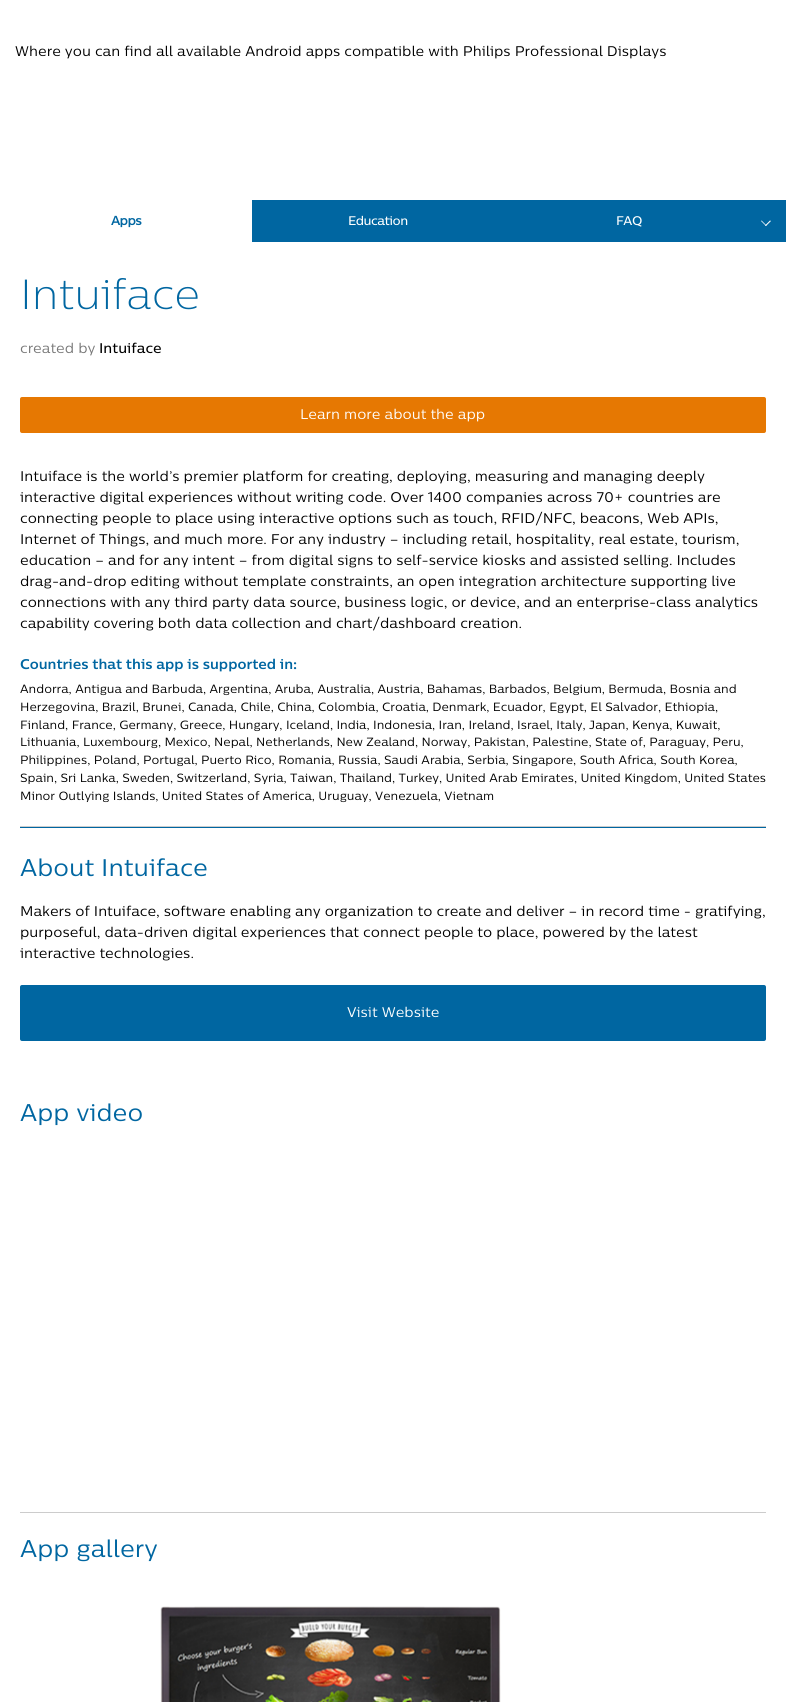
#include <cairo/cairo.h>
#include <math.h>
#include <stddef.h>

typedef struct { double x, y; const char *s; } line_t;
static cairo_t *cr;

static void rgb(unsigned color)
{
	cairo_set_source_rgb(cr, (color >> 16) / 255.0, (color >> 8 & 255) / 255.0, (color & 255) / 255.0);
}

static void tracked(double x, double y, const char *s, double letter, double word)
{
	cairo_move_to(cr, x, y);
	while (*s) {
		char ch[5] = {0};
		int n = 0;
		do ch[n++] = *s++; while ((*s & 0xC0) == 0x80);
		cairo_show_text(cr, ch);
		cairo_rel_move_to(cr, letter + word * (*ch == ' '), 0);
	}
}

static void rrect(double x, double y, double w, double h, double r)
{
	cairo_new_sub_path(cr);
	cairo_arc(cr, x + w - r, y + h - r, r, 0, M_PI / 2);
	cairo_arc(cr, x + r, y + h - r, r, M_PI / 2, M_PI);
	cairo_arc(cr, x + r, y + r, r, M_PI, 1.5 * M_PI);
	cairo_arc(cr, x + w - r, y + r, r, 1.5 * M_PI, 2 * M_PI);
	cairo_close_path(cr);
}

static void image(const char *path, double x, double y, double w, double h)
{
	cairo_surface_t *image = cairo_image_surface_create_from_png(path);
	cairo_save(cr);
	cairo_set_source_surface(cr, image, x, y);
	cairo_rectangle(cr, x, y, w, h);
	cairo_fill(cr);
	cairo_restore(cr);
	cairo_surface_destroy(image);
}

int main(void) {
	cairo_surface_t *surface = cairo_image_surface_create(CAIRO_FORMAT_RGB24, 786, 1702);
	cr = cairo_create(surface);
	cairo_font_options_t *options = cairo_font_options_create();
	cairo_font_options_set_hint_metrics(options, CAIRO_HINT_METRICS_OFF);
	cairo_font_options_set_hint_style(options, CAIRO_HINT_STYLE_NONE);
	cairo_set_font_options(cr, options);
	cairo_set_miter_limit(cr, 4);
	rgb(0xffffff);
	cairo_paint(cr);
	rgb(0x0066a1);
	cairo_rectangle(cr, 252, 200, 534, 42);
	cairo_fill(cr);
	rgb(0xffffff);
	cairo_new_path(cr);
	cairo_move_to(cr, 771, 221);
	cairo_line_to(cr, 766, 226);
	cairo_line_to(cr, 765, 225.5);
	cairo_line_to(cr, 770, 220.5);
	cairo_close_path(cr);
	cairo_fill(cr);
	cairo_new_path(cr);
	cairo_move_to(cr, 766.5, 225.5);
	cairo_line_to(cr, 766, 226);
	cairo_line_to(cr, 761, 221);
	cairo_line_to(cr, 761.5, 220.5);
	cairo_close_path(cr);
	cairo_fill(cr);
	rgb(0x0066a1);
	cairo_rectangle(cr, 20, 827, 746, 1);
	cairo_fill(cr);
	rgb(0xe67802);
	rrect(20, 397, 746, 36, 2);
	cairo_fill(cr);
	rgb(0xcccccc);
	cairo_rectangle(cr, 20, 826, 746, 1);
	cairo_fill(cr);
	rgb(0x0066a1);
	rrect(20, 985, 746, 56, 2);
	cairo_fill(cr);
	rgb(0xcccccc);
	cairo_rectangle(cr, 20, 1512, 746, 1);
	cairo_fill(cr);
	image("img/1.png", 160, 1606, 341, 96);
	cairo_select_font_face(cr, "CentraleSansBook", CAIRO_FONT_SLANT_NORMAL, CAIRO_FONT_WEIGHT_NORMAL);
	cairo_set_font_size(cr, 14);
	rgb(0x000000);
	cairo_move_to(cr, 15, 56);
	cairo_show_text(cr, "Where you can find all available Android apps compatible with Philips Professional Displays");
	cairo_select_font_face(cr, "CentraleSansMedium", CAIRO_FONT_SLANT_NORMAL, CAIRO_FONT_WEIGHT_BOLD);
	cairo_set_font_size(cr, 12.5);
	rgb(0x0066a1);
	tracked(111, 225, "Apps", -0.5, 0);
	cairo_select_font_face(cr, "CentraleSansMedium Medium", CAIRO_FONT_SLANT_NORMAL, CAIRO_FONT_WEIGHT_NORMAL);
	rgb(0xffffff);
	tracked(348, 225, "Education", -0.5, 0);
	tracked(616, 225, "FAQ", -0.5, 0);
	cairo_select_font_face(cr, "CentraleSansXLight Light", CAIRO_FONT_SLANT_NORMAL, CAIRO_FONT_WEIGHT_NORMAL);
	cairo_set_font_size(cr, 42);
	rgb(0x0066a1);
	cairo_move_to(cr, 20, 309);
	cairo_show_text(cr, "Intuiface");
	cairo_select_font_face(cr, "CentraleSansBook", CAIRO_FONT_SLANT_NORMAL, CAIRO_FONT_WEIGHT_NORMAL);
	cairo_set_font_size(cr, 14);
	rgb(0x777777);
	cairo_move_to(cr, 20, 353);
	cairo_show_text(cr, "created by");
	cairo_select_font_face(cr, "CentraleSansMedium Medium", CAIRO_FONT_SLANT_NORMAL, CAIRO_FONT_WEIGHT_NORMAL);
	rgb(0x000000);
	cairo_move_to(cr, 99, 353);
	cairo_show_text(cr, "Intuiface");
	cairo_select_font_face(cr, "CentraleSansBook", CAIRO_FONT_SLANT_NORMAL, CAIRO_FONT_WEIGHT_NORMAL);
	rgb(0xffffff);
	cairo_move_to(cr, 300, 419);
	cairo_show_text(cr, "Learn more about the app");
	rgb(0x000000);
	{
		static const line_t items[] = {
			{20, 481, "Intuiface is the world’s premier platform for creating, deploying, measuring and managing deeply"},
			{20, 502, "interactive digital experiences without writing code. Over 1400 companies across 70+ countries are"},
			{20, 523, "connecting people to place using interactive options such as touch, RFID/NFC, beacons, Web APIs,"},
			{20, 544, "Internet of Things, and much more. For any industry – including retail, hospitality, real estate, tourism,"},
			{20, 565, "education – and for any intent – from digital signs to self-service kiosks and assisted selling. Includes"},
			{20, 586, "drag-and-drop editing without template constraints, an open integration architecture supporting live"},
			{20, 607, "connections with any third party data source, business logic, or device, and an enterprise-class analytics"},
			{20, 628, "capability covering both data collection and chart/dashboard creation."},
		};
		for (size_t i = 0; i < sizeof items / sizeof *items; i++) {
			cairo_move_to(cr, items[i].x, items[i].y);
			cairo_show_text(cr, items[i].s);
		}
	}
	cairo_select_font_face(cr, "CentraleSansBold", CAIRO_FONT_SLANT_NORMAL, CAIRO_FONT_WEIGHT_BOLD);
	rgb(0x0066a1);
	cairo_move_to(cr, 20, 669);
	cairo_show_text(cr, "Countries that this app is supported in:");
	cairo_select_font_face(cr, "CentraleSansBook", CAIRO_FONT_SLANT_NORMAL, CAIRO_FONT_WEIGHT_NORMAL);
	cairo_set_font_size(cr, 11.9);
	rgb(0x000000);
	{
		static const line_t items[] = {
			{20, 693, "Andorra, Antigua and Barbuda, Argentina, Aruba, Australia, Austria, Bahamas, Barbados, Belgium, Bermuda, Bosnia and"},
			{20, 711, "Herzegovina, Brazil, Brunei, Canada, Chile, China, Colombia, Croatia, Denmark, Ecuador, Egypt, El Salvador, Ethiopia,"},
			{20, 729, "Finland, France, Germany, Greece, Hungary, Iceland, India, Indonesia, Iran, Ireland, Israel, Italy, Japan, Kenya, Kuwait,"},
			{20, 746, "Lithuania, Luxembourg, Mexico, Nepal, Netherlands, New Zealand, Norway, Pakistan, Palestine, State of, Paraguay, Peru,"},
			{20, 764, "Philippines, Poland, Portugal, Puerto Rico, Romania, Russia, Saudi Arabia, Serbia, Singapore, South Africa, South Korea,"},
			{20, 782, "Spain, Sri Lanka, Sweden, Switzerland, Syria, Taiwan, Thailand, Turkey, United Arab Emirates, United Kingdom, United States"},
			{20, 800, "Minor Outlying Islands, United States of America, Uruguay, Venezuela, Vietnam"},
		};
		for (size_t i = 0; i < sizeof items / sizeof *items; i++) {
			cairo_move_to(cr, items[i].x, items[i].y);
			cairo_show_text(cr, items[i].s);
		}
	}
	cairo_set_font_size(cr, 24);
	rgb(0x0066a1);
	cairo_move_to(cr, 20, 876);
	cairo_show_text(cr, "About Intuiface");
	cairo_set_font_size(cr, 14);
	rgb(0x000000);
	{
		static const line_t items[] = {
			{20, 916, "Makers of Intuiface, software enabling any organization to create and deliver – in record time - gratifying,"},
			{20, 937, "purposeful, data-driven digital experiences that connect people to place, powered by the latest"},
			{20, 958, "interactive technologies."},
		};
		for (size_t i = 0; i < sizeof items / sizeof *items; i++) {
			cairo_move_to(cr, items[i].x, items[i].y);
			cairo_show_text(cr, items[i].s);
		}
	}
	rgb(0xffffff);
	cairo_move_to(cr, 347, 1017);
	cairo_show_text(cr, "Visit Website");
	cairo_set_font_size(cr, 24);
	rgb(0x0066a1);
	cairo_move_to(cr, 20, 1121);
	cairo_show_text(cr, "App video");
	cairo_move_to(cr, 20, 1557);
	cairo_show_text(cr, "App gallery");
	cairo_surface_write_to_png(surface, "page.png");
	cairo_font_options_destroy(options);
	cairo_destroy(cr);
	cairo_surface_destroy(surface);
	return 0;
}
